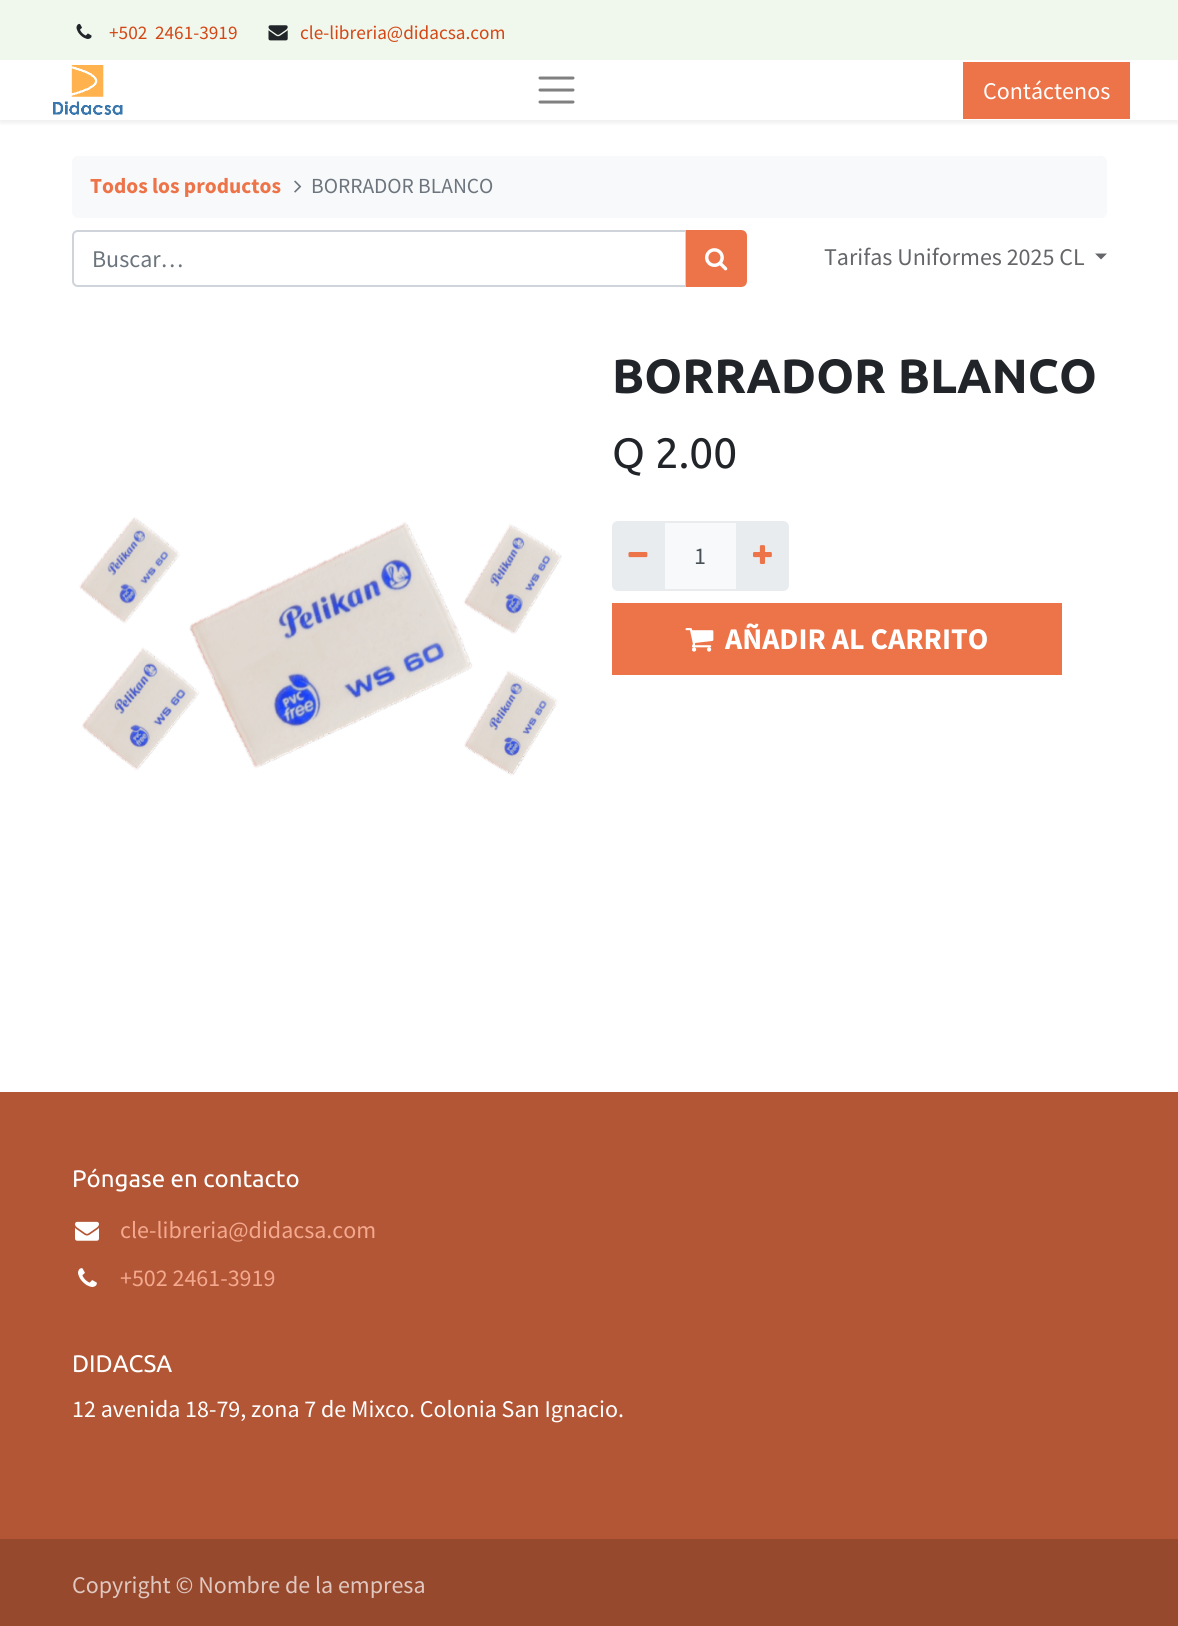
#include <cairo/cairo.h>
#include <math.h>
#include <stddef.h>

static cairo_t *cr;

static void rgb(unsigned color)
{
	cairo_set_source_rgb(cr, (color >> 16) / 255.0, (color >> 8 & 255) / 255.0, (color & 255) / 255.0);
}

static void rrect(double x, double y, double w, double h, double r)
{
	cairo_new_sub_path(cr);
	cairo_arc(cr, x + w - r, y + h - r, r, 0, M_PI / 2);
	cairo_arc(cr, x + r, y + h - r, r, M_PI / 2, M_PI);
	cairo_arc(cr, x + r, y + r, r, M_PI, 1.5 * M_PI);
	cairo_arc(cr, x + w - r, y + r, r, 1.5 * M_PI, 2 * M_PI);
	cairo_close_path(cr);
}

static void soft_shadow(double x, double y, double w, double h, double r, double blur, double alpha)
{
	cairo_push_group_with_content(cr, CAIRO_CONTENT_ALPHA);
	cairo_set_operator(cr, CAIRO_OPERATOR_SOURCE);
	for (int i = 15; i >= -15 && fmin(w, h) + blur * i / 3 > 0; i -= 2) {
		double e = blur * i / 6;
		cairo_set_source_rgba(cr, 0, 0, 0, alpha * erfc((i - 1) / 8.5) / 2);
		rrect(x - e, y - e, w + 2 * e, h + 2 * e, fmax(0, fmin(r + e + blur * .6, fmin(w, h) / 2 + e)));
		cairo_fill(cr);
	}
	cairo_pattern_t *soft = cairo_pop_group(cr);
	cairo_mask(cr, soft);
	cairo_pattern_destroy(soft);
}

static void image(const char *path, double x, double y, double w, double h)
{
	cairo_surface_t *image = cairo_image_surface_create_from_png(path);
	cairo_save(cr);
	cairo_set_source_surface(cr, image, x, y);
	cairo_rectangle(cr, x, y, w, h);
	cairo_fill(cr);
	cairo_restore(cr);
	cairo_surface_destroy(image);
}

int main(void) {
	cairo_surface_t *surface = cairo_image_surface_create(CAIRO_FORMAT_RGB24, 1178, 1626);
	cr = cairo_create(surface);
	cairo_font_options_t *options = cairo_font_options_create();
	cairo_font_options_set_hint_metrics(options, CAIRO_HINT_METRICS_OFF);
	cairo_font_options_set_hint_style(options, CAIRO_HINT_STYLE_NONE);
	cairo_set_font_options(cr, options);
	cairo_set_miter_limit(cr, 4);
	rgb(0xffffff);
	cairo_paint(cr);
	rgb(0xf0f7ed);
	cairo_rectangle(cr, 0, 0, 1178, 60);
	cairo_fill(cr);
	image("img/1.png", 76, 23, 16, 16);
	image("img/2.png", 268, 25, 20, 16);
	cairo_save(cr);
	cairo_rectangle(cr, 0, 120, 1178, 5);
	cairo_clip(cr);
	rgb(0x000000);
	soft_shadow(0, 63, 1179, 60, 0, 3, 0.07);
	cairo_restore(cr);
	image("img/3.png", 53, 65, 70, 50);
	cairo_new_path(cr);
	cairo_move_to(cr, 540, 78);
	cairo_line_to(cr, 573, 78);
	cairo_move_to(cr, 540, 90);
	cairo_line_to(cr, 573, 90);
	cairo_move_to(cr, 540, 102);
	cairo_line_to(cr, 573, 102);
	rgb(0x808080);
	cairo_set_line_width(cr, 3);
	cairo_set_line_cap(cr, CAIRO_LINE_CAP_ROUND);
	cairo_stroke(cr);
	rgb(0xed7348);
	cairo_rectangle(cr, 963, 62, 167, 57);
	cairo_fill(cr);
	rgb(0xf8f9fa);
	rrect(72, 156, 1035, 62, 6);
	cairo_fill(cr);
	image("img/4.png", 294, 180, 8, 13);
	cairo_new_path(cr);
	cairo_move_to(cr, 78, 231);
	cairo_line_to(cr, 686, 231);
	cairo_line_to(cr, 686, 286);
	cairo_line_to(cr, 78, 286);
	cairo_curve_to(cr, 75, 286, 73, 284, 73, 281);
	cairo_line_to(cr, 73, 236);
	cairo_curve_to(cr, 73, 233, 75, 231, 78, 231);
	cairo_close_path(cr);
	rgb(0xced4da);
	cairo_set_line_width(cr, 2);
	cairo_set_line_cap(cr, CAIRO_LINE_CAP_BUTT);
	cairo_stroke(cr);
	rgb(0xed7348);
	cairo_new_path(cr);
	cairo_move_to(cr, 687, 231);
	cairo_line_to(cr, 741, 231);
	cairo_curve_to(cr, 744, 231, 746, 233, 746, 236);
	cairo_line_to(cr, 746, 281);
	cairo_curve_to(cr, 746, 284, 744, 286, 741, 286);
	cairo_line_to(cr, 687, 286);
	cairo_close_path(cr);
	cairo_fill_preserve(cr);
	cairo_stroke(cr);
	image("img/5.png", 705, 248, 23, 23);
	rgb(0x646669);
	cairo_new_path(cr);
	cairo_move_to(cr, 1095, 253.5);
	cairo_line_to(cr, 1107, 253.5);
	cairo_line_to(cr, 1101, 259.5);
	cairo_close_path(cr);
	cairo_fill(cr);
	image("img/6.png", 79, 517, 483, 259);
	rgb(0xf8f9fa);
	cairo_rectangle(cr, 664, 522, 73, 68);
	cairo_fill_preserve(cr);
	rgb(0xe9ecef);
	cairo_stroke(cr);
	cairo_new_path(cr);
	cairo_move_to(cr, 618, 521);
	cairo_line_to(cr, 665, 521);
	cairo_line_to(cr, 665, 591);
	cairo_line_to(cr, 618, 591);
	cairo_curve_to(cr, 614.5, 591, 612, 588.5, 612, 585);
	cairo_line_to(cr, 612, 527);
	cairo_curve_to(cr, 612, 523.5, 614.5, 521, 618, 521);
	cairo_close_path(cr);
	cairo_fill(cr);
	image("img/7.png", 628, 552, 20, 6);
	cairo_new_path(cr);
	cairo_move_to(cr, 737, 521);
	cairo_line_to(cr, 783, 521);
	cairo_curve_to(cr, 786.5, 521, 789, 523.5, 789, 527);
	cairo_line_to(cr, 789, 585);
	cairo_curve_to(cr, 789, 588.5, 786.5, 591, 783, 591);
	cairo_line_to(cr, 737, 591);
	cairo_close_path(cr);
	cairo_fill(cr);
	image("img/8.png", 753, 545, 19, 19);
	rgb(0xed7348);
	cairo_rectangle(cr, 612, 603, 450, 72);
	cairo_fill(cr);
	image("img/9.png", 685, 628, 29, 24);
	rgb(0xb25636);
	cairo_rectangle(cr, 0, 1092, 1178, 447);
	cairo_fill(cr);
	image("img/10.png", 75, 1221, 24, 20);
	image("img/11.png", 78, 1268, 19, 19);
	rgb(0x97492e);
	cairo_rectangle(cr, 0, 1539, 1178, 87);
	cairo_fill(cr);
	cairo_select_font_face(cr, "Source Sans Pro", CAIRO_FONT_SLANT_NORMAL, CAIRO_FONT_WEIGHT_NORMAL);
	cairo_set_font_size(cr, 19.25);
	rgb(0xd44715);
	cairo_move_to(cr, 109, 39);
	cairo_show_text(cr, "+502  2461-3919");
	cairo_move_to(cr, 300, 39);
	cairo_show_text(cr, "cle-libreria@didacsa.com");
	cairo_set_font_size(cr, 24);
	rgb(0xffffff);
	cairo_move_to(cr, 983, 99);
	cairo_show_text(cr, "Contáctenos");
	cairo_select_font_face(cr, "Source Sans Pro", CAIRO_FONT_SLANT_NORMAL, CAIRO_FONT_WEIGHT_BOLD);
	cairo_set_font_size(cr, 21.5);
	rgb(0xed7348);
	cairo_move_to(cr, 90, 193);
	cairo_show_text(cr, "Todos los productos");
	cairo_select_font_face(cr, "Source Sans Pro", CAIRO_FONT_SLANT_NORMAL, CAIRO_FONT_WEIGHT_NORMAL);
	rgb(0x6c757d);
	cairo_move_to(cr, 311, 193);
	cairo_show_text(cr, "BORRADOR BLANCO");
	cairo_set_font_size(cr, 24);
	cairo_move_to(cr, 92, 267);
	cairo_show_text(cr, "Buscar…");
	rgb(0x646669);
	cairo_move_to(cr, 824, 265);
	cairo_show_text(cr, "Tarifas Uniformes 2025 CL");
	cairo_select_font_face(cr, "Ubuntu", CAIRO_FONT_SLANT_NORMAL, CAIRO_FONT_WEIGHT_BOLD);
	cairo_set_font_size(cr, 48);
	rgb(0x212529);
	cairo_move_to(cr, 612, 393);
	cairo_show_text(cr, "BORRADOR BLANCO");
	cairo_select_font_face(cr, "Ubuntu", CAIRO_FONT_SLANT_NORMAL, CAIRO_FONT_WEIGHT_NORMAL);
	cairo_set_font_size(cr, 42.5);
	cairo_move_to(cr, 612, 468);
	cairo_show_text(cr, "Q 2.00");
	cairo_select_font_face(cr, "Source Sans Pro", CAIRO_FONT_SLANT_NORMAL, CAIRO_FONT_WEIGHT_NORMAL);
	cairo_set_font_size(cr, 24);
	rgb(0x495057);
	cairo_move_to(cr, 694, 564);
	cairo_show_text(cr, "1");
	cairo_select_font_face(cr, "Source Sans Pro", CAIRO_FONT_SLANT_NORMAL, CAIRO_FONT_WEIGHT_BOLD);
	cairo_set_font_size(cr, 30);
	rgb(0xffffff);
	cairo_move_to(cr, 725, 649);
	cairo_show_text(cr, "AÑADIR AL CARRITO");
	cairo_select_font_face(cr, "Ubuntu", CAIRO_FONT_SLANT_NORMAL, CAIRO_FONT_WEIGHT_NORMAL);
	cairo_set_font_size(cr, 24);
	cairo_move_to(cr, 72, 1187);
	cairo_show_text(cr, "Póngase en contacto");
	cairo_select_font_face(cr, "Source Sans Pro", CAIRO_FONT_SLANT_NORMAL, CAIRO_FONT_WEIGHT_NORMAL);
	rgb(0xf4a88e);
	cairo_move_to(cr, 120, 1238);
	cairo_show_text(cr, "cle-libreria@didacsa.com");
	cairo_move_to(cr, 120, 1286);
	cairo_show_text(cr, "+502 2461-3919");
	cairo_select_font_face(cr, "Ubuntu", CAIRO_FONT_SLANT_NORMAL, CAIRO_FONT_WEIGHT_NORMAL);
	rgb(0xffffff);
	cairo_move_to(cr, 72, 1372);
	cairo_show_text(cr, "DIDACSA");
	cairo_select_font_face(cr, "Source Sans Pro", CAIRO_FONT_SLANT_NORMAL, CAIRO_FONT_WEIGHT_NORMAL);
	cairo_move_to(cr, 72, 1417);
	cairo_show_text(cr, "12 avenida 18-79, zona 7 de Mixco. Colonia San Ignacio.");
	rgb(0xe0c8c0);
	cairo_move_to(cr, 72, 1593);
	cairo_show_text(cr, "Copyright © Nombre de la empresa");
	cairo_surface_write_to_png(surface, "page.png");
	cairo_font_options_destroy(options);
	cairo_destroy(cr);
	cairo_surface_destroy(surface);
	return 0;
}
